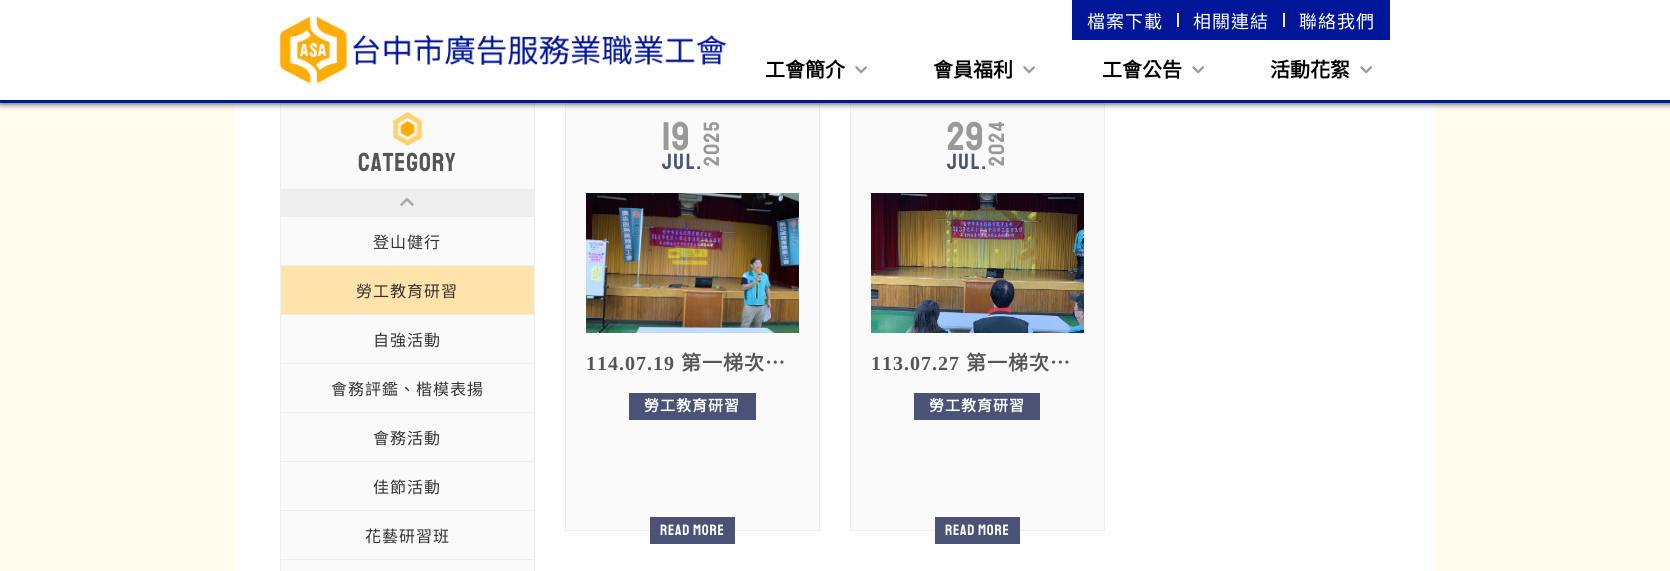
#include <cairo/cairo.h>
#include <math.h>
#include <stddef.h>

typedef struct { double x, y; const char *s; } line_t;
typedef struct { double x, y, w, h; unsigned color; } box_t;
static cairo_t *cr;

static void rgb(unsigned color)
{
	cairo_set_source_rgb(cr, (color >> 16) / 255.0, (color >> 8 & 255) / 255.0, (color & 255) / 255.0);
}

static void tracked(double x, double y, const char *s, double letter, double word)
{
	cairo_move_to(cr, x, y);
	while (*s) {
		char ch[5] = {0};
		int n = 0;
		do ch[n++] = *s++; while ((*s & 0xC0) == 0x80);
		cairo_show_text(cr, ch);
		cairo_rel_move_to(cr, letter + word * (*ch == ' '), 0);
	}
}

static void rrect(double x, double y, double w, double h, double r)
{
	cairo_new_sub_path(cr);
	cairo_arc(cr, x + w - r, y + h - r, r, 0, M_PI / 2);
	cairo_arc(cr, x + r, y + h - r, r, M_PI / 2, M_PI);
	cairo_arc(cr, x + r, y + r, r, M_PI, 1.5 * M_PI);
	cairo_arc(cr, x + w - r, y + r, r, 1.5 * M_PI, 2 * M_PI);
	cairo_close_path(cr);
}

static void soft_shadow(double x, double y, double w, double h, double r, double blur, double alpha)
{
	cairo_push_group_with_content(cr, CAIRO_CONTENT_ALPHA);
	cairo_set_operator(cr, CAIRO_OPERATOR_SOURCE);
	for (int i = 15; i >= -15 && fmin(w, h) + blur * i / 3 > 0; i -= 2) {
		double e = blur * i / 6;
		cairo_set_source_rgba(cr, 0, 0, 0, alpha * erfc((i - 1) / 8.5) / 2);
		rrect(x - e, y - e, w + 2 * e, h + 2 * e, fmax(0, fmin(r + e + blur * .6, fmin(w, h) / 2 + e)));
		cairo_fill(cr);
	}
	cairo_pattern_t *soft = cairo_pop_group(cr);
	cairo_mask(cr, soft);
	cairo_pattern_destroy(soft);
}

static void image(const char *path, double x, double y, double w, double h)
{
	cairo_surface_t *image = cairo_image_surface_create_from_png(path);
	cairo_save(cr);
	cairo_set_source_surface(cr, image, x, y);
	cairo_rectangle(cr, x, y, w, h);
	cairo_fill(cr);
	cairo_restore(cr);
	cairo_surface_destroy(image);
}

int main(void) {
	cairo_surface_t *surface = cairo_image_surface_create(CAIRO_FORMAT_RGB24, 1670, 571);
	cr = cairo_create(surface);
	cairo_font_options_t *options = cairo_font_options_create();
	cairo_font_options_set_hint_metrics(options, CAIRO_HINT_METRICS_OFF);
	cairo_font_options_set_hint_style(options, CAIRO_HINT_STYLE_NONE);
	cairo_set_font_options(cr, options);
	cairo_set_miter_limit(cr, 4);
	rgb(0xfffcee);
	cairo_paint(cr);
	rgb(0xffffff);
	cairo_rectangle(cr, 235, 103, 1200, 468);
	cairo_fill(cr);
	rgb(0xfafafa);
	cairo_rectangle(cr, 281, 103, 253, 468);
	cairo_fill(cr);
	cairo_rectangle(cr, 280.5, 101.5, 254, 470);
	rgb(0xeeeeee);
	cairo_set_line_width(cr, 1);
	cairo_stroke(cr);
	image("img/3.png", 393, 112, 29, 34);
	rgb(0xfafafa);
	cairo_rectangle(cr, 566, 103, 253, 427);
	cairo_fill(cr);
	cairo_rectangle(cr, 565.5, 101.5, 254, 429);
	rgb(0xeeeeee);
	cairo_stroke(cr);
	rgb(0xfafafa);
	cairo_rectangle(cr, 851, 103, 253, 427);
	cairo_fill(cr);
	cairo_rectangle(cr, 850.5, 101.5, 254, 429);
	rgb(0xeeeeee);
	cairo_stroke(cr);
	rgb(0x000000);
	soft_shadow(0, 0, 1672, 105, 0, 2.5, 0.5);
	rgb(0xffffff);
	cairo_rectangle(cr, 0, 0, 1670, 100);
	cairo_fill(cr);
	rgb(0x001699);
	cairo_rectangle(cr, 0, 100, 1670, 3);
	cairo_fill(cr);
	image("img/1.png", 280, 16, 446, 68);
	{
		static const box_t items[] = {
			{1072, 0, 318, 40, 0x001699},
			{1177, 13, 2, 14, 0xffe0a9},
			{1283, 13, 2, 14, 0xffe0a9},
		};
		for (size_t i = 0; i < sizeof items / sizeof *items; i++) {
			rgb(items[i].color);
			cairo_rectangle(cr, items[i].x, items[i].y, items[i].w, items[i].h);
			cairo_fill(cr);
		}
	}
	image("img/2.png", 855, 66, 12, 8);
	image("img/2.png", 1023, 66, 12, 8);
	image("img/2.png", 1192, 66, 12, 8);
	image("img/2.png", 1360, 66, 12, 8);
	rgb(0xeeeeee);
	cairo_rectangle(cr, 281, 189, 253, 28);
	cairo_fill(cr);
	image("img/4.png", 400, 197, 14, 9);
	{
		static const box_t items[] = {
			{281, 265, 253, 1, 0xeeeeee},
			{281, 314, 253, 1, 0xeeeeee},
			{281, 266, 253, 48, 0xffe3ab},
			{281, 363, 253, 1, 0xeeeeee},
			{281, 412, 253, 1, 0xeeeeee},
			{281, 461, 253, 1, 0xeeeeee},
			{281, 510, 253, 1, 0xeeeeee},
			{281, 559, 253, 1, 0xeeeeee},
		};
		for (size_t i = 0; i < sizeof items / sizeof *items; i++) {
			rgb(items[i].color);
			cairo_rectangle(cr, items[i].x, items[i].y, items[i].w, items[i].h);
			cairo_fill(cr);
		}
	}
	image("img/5.png", 586, 193, 213, 140);
	rgb(0x4a5375);
	cairo_rectangle(cr, 629, 393, 127, 27);
	cairo_fill(cr);
	cairo_rectangle(cr, 650, 517, 85, 27);
	cairo_fill(cr);
	image("img/6.png", 871, 193, 213, 140);
	cairo_rectangle(cr, 914, 393, 126, 27);
	cairo_fill(cr);
	cairo_rectangle(cr, 935, 517, 85, 27);
	cairo_fill(cr);
	cairo_select_font_face(cr, "Noto Sans CJK TC", CAIRO_FONT_SLANT_NORMAL, CAIRO_FONT_WEIGHT_NORMAL);
	cairo_set_font_size(cr, 18);
	rgb(0xffffff);
	{
		static const line_t items[] = {
			{1087, 28, "檔案下載"},
			{1193, 28, "相關連結"},
			{1299, 28, "聯絡我們"},
		};
		for (size_t i = 0; i < sizeof items / sizeof *items; i++) {
			tracked(items[i].x, items[i].y, items[i].s, 1, 0);
		}
	}
	cairo_select_font_face(cr, "Noto Sans CJK TC", CAIRO_FONT_SLANT_NORMAL, CAIRO_FONT_WEIGHT_BOLD);
	cairo_set_font_size(cr, 20);
	rgb(0x000000);
	{
		static const line_t items[] = {
			{765, 77, "工會簡介"},
			{933, 77, "會員福利"},
			{1102, 77, "工會公告"},
			{1270, 77, "活動花絮"},
		};
		for (size_t i = 0; i < sizeof items / sizeof *items; i++) {
			cairo_move_to(cr, items[i].x, items[i].y);
			cairo_show_text(cr, items[i].s);
		}
	}
	cairo_select_font_face(cr, "Staatliches", CAIRO_FONT_SLANT_NORMAL, CAIRO_FONT_WEIGHT_NORMAL);
	cairo_set_font_size(cr, 26);
	rgb(0x555555);
	tracked(358, 171, "Category", 1, 0);
	cairo_select_font_face(cr, "Noto Sans CJK TC", CAIRO_FONT_SLANT_NORMAL, CAIRO_FONT_WEIGHT_NORMAL);
	cairo_set_font_size(cr, 16);
	rgb(0x333333);
	{
		static const line_t items[] = {
			{373, 248, "登山健行"},
			{356, 297, "勞工教育研習"},
			{373, 346, "自強活動"},
			{331, 395, "會務評鑑、楷模表揚"},
			{373, 444, "會務活動"},
			{373, 493, "佳節活動"},
			{365, 542, "花藝研習班"},
		};
		for (size_t i = 0; i < sizeof items / sizeof *items; i++) {
			tracked(items[i].x, items[i].y, items[i].s, 1, 0);
		}
	}
	cairo_select_font_face(cr, "Staatliches", CAIRO_FONT_SLANT_NORMAL, CAIRO_FONT_WEIGHT_NORMAL);
	cairo_set_font_size(cr, 40);
	rgb(0x999999);
	tracked(662, 150, "19", 1, 0);
	cairo_set_font_size(cr, 22);
	cairo_save(cr);
	cairo_translate(cr, 719, 166);
	cairo_rotate(cr, -90 * M_PI / 180);
	tracked(0, 0, "2025", 1.5, 0);
	cairo_restore(cr);
	rgb(0x4a5375);
	tracked(662, 169, "JUL.", 2, 0);
	cairo_select_font_face(cr, "Liberation Serif", CAIRO_FONT_SLANT_NORMAL, CAIRO_FONT_WEIGHT_BOLD);
	cairo_set_font_size(cr, 20);
	rgb(0x555555);
	tracked(586, 370, "114.07.19", 1, 0);
	cairo_select_font_face(cr, "Noto Sans CJK TC", CAIRO_FONT_SLANT_NORMAL, CAIRO_FONT_WEIGHT_BOLD);
	tracked(681, 370, "第一梯次…", 1, 0);
	cairo_set_font_size(cr, 15);
	rgb(0xffffff);
	tracked(644, 411, "勞工教育研習", 1, 0);
	cairo_select_font_face(cr, "Staatliches", CAIRO_FONT_SLANT_NORMAL, CAIRO_FONT_WEIGHT_NORMAL);
	tracked(660, 535, "READ MORE", 0.75, 0);
	cairo_set_font_size(cr, 40);
	rgb(0x999999);
	tracked(947, 150, "29", 1, 0);
	cairo_set_font_size(cr, 22);
	cairo_save(cr);
	cairo_translate(cr, 1004, 166);
	cairo_rotate(cr, -90 * M_PI / 180);
	tracked(0, 0, "2024", 1.5, 0);
	cairo_restore(cr);
	rgb(0x4a5375);
	tracked(947, 169, "JUL.", 2, 0);
	cairo_select_font_face(cr, "Liberation Serif", CAIRO_FONT_SLANT_NORMAL, CAIRO_FONT_WEIGHT_BOLD);
	cairo_set_font_size(cr, 20);
	rgb(0x555555);
	tracked(871, 370, "113.07.27", 1, 0);
	cairo_select_font_face(cr, "Noto Sans CJK TC", CAIRO_FONT_SLANT_NORMAL, CAIRO_FONT_WEIGHT_BOLD);
	tracked(966, 370, "第一梯次…", 1, 0);
	cairo_set_font_size(cr, 15);
	rgb(0xffffff);
	tracked(929, 411, "勞工教育研習", 1, 0);
	cairo_select_font_face(cr, "Staatliches", CAIRO_FONT_SLANT_NORMAL, CAIRO_FONT_WEIGHT_NORMAL);
	tracked(945, 535, "READ MORE", 0.75, 0);
	cairo_surface_write_to_png(surface, "page.png");
	cairo_font_options_destroy(options);
	cairo_destroy(cr);
	cairo_surface_destroy(surface);
	return 0;
}
